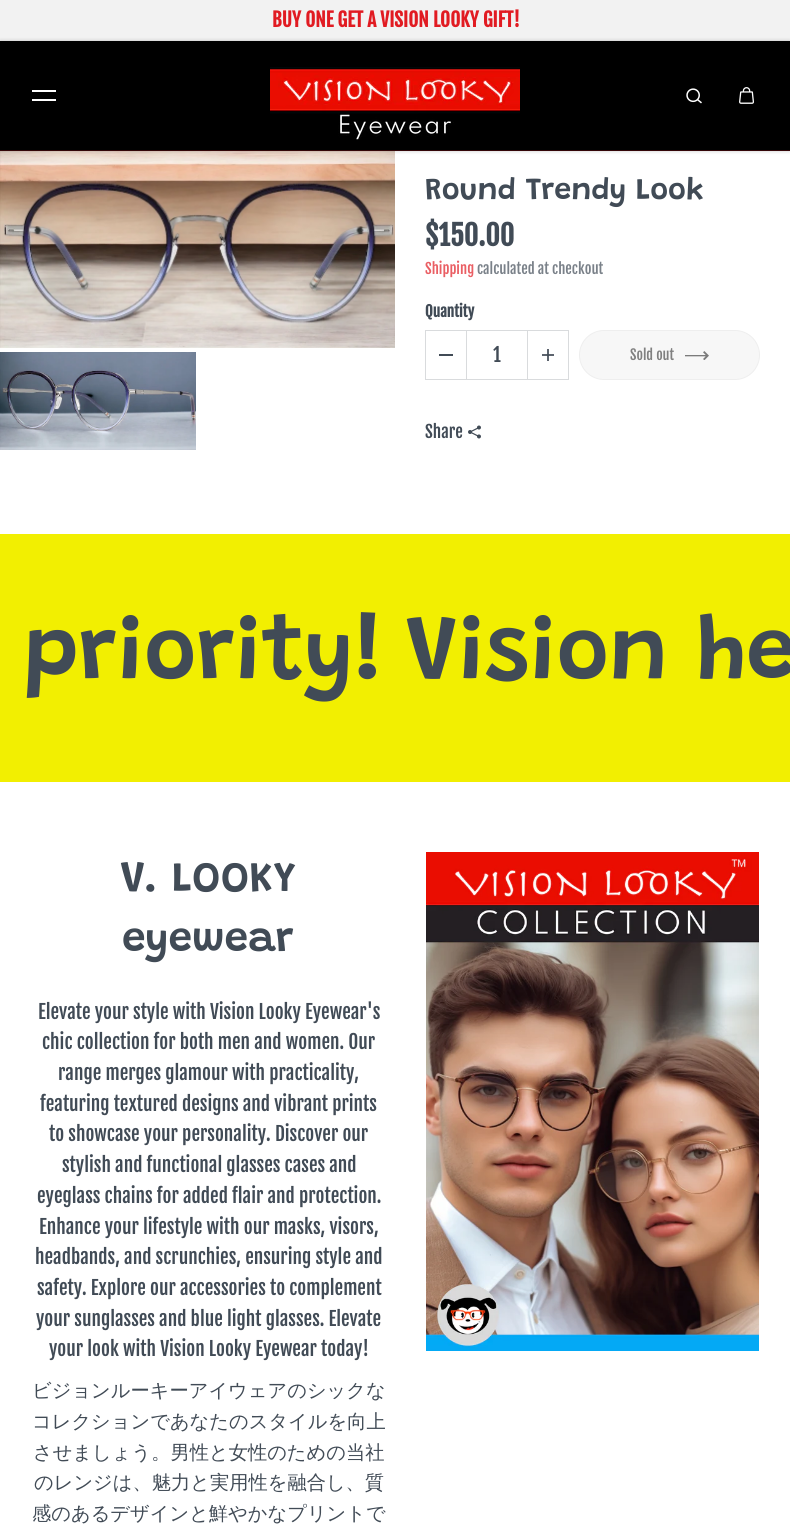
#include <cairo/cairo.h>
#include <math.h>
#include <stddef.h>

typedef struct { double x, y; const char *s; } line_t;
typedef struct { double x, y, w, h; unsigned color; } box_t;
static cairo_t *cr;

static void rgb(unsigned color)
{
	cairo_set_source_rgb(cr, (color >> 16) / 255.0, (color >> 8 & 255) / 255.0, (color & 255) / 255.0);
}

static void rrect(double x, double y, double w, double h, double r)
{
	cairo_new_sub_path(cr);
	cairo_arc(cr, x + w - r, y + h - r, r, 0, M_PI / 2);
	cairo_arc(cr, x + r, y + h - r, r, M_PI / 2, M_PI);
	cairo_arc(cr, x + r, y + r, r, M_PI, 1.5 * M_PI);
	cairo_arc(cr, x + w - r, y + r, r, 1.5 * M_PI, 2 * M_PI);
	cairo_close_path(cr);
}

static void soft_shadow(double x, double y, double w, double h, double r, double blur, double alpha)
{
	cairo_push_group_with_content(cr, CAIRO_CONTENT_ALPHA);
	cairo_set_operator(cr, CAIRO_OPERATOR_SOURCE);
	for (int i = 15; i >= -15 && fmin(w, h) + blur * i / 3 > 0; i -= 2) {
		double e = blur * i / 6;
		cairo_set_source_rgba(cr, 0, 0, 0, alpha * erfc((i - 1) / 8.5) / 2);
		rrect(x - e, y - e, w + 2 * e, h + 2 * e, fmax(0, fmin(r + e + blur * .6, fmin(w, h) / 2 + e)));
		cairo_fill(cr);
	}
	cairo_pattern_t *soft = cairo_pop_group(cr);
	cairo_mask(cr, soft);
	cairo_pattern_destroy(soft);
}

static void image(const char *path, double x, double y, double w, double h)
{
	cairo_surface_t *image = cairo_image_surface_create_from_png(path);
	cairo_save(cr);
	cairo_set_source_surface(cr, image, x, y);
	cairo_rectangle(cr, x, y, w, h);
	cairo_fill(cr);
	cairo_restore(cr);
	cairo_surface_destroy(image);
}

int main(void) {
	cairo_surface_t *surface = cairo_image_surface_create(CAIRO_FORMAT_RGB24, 790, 1537);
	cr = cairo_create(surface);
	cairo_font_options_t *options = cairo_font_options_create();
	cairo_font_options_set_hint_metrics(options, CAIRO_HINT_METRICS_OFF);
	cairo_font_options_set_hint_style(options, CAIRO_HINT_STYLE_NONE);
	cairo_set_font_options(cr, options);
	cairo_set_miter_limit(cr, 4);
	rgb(0xffffff);
	cairo_paint(cr);
	rgb(0xf2f2f2);
	cairo_rectangle(cr, 0, 0, 790, 41);
	cairo_fill(cr);
	image("img/4.png", 0, 151, 395, 197);
	rgb(0x000000);
	soft_shadow(0, 41, 790, 110, 0, 2, 0.21);
	{
		static const box_t items[] = {
			{0, 41, 790, 109, 0x000000},
			{0, 150, 790, 1, 0x340608},
			{32, 90, 24, 2, 0xffffff},
			{32, 99, 24, 2, 0xffffff},
		};
		for (size_t i = 0; i < sizeof items / sizeof *items; i++) {
			rgb(items[i].color);
			cairo_rectangle(cr, items[i].x, items[i].y, items[i].w, items[i].h);
			cairo_fill(cr);
		}
	}
	image("img/1.png", 270, 67, 250, 73);
	image("img/2.png", 686, 88, 16, 16);
	image("img/3.png", 739, 87, 15, 17);
	image("img/5.png", 0, 352, 196, 98);
	cairo_rectangle(cr, 425.5, 330.5, 41, 49);
	rgb(0xd9dbdd);
	cairo_set_line_width(cr, 1);
	cairo_stroke(cr);
	{
		static const box_t items[] = {
			{439, 354, 14, 2, 0x414b56},
			{467, 330, 60, 1, 0xd9dbdd},
			{467, 379, 60, 1, 0xd9dbdd},
		};
		for (size_t i = 0; i < sizeof items / sizeof *items; i++) {
			rgb(items[i].color);
			cairo_rectangle(cr, items[i].x, items[i].y, items[i].w, items[i].h);
			cairo_fill(cr);
		}
	}
	cairo_rectangle(cr, 527.5, 330.5, 41, 49);
	cairo_stroke(cr);
	image("img/6.png", 542, 349, 12, 12);
	rgb(0xf7f7f7);
	rrect(579.5, 330.5, 180, 49, 24.5);
	cairo_fill_preserve(cr);
	rgb(0xeeeeee);
	cairo_stroke(cr);
	image("img/7.png", 685, 351, 24, 9);
	image("img/8.png", 468, 425, 13, 14);
	rgb(0xf2ef01);
	cairo_rectangle(cr, 0, 534, 790, 248);
	cairo_fill(cr);
	image("img/9.png", 426, 852, 333, 499);
	cairo_select_font_face(cr, "Fjalla One", CAIRO_FONT_SLANT_NORMAL, CAIRO_FONT_WEIGHT_BOLD);
	cairo_set_font_size(cr, 19.25);
	rgb(0xe11b22);
	cairo_move_to(cr, 272, 27);
	cairo_show_text(cr, "BUY ONE GET A VISION LOOKY GIFT!");
	cairo_select_font_face(cr, "Grandstander SemiBold", CAIRO_FONT_SLANT_NORMAL, CAIRO_FONT_WEIGHT_NORMAL);
	cairo_set_font_size(cr, 30.5);
	rgb(0x414b56);
	cairo_move_to(cr, 425, 199);
	cairo_show_text(cr, "Round Trendy Look");
	cairo_select_font_face(cr, "Fjalla One", CAIRO_FONT_SLANT_NORMAL, CAIRO_FONT_WEIGHT_BOLD);
	cairo_set_font_size(cr, 28);
	cairo_move_to(cr, 425, 246);
	cairo_show_text(cr, "$150.00");
	cairo_select_font_face(cr, "Fjalla One", CAIRO_FONT_SLANT_NORMAL, CAIRO_FONT_WEIGHT_NORMAL);
	cairo_set_font_size(cr, 14.5);
	rgb(0xea5f64);
	cairo_move_to(cr, 425, 274);
	cairo_show_text(cr, "Shipping");
	rgb(0x7a8189);
	cairo_move_to(cr, 477, 274);
	cairo_show_text(cr, "calculated at checkout");
	cairo_select_font_face(cr, "Fjalla One", CAIRO_FONT_SLANT_NORMAL, CAIRO_FONT_WEIGHT_BOLD);
	cairo_set_font_size(cr, 15);
	rgb(0x414b56);
	cairo_move_to(cr, 425, 317);
	cairo_show_text(cr, "Quantity");
	cairo_select_font_face(cr, "Fjalla One", CAIRO_FONT_SLANT_NORMAL, CAIRO_FONT_WEIGHT_NORMAL);
	cairo_set_font_size(cr, 19.25);
	cairo_move_to(cr, 493, 362);
	cairo_show_text(cr, "1");
	cairo_set_font_size(cr, 14);
	rgb(0x808080);
	cairo_move_to(cr, 630, 360);
	cairo_show_text(cr, "Sold out");
	cairo_set_font_size(cr, 17);
	rgb(0x414b56);
	cairo_move_to(cr, 425, 438);
	cairo_show_text(cr, "Share");
	cairo_select_font_face(cr, "Grandstander SemiBold", CAIRO_FONT_SLANT_NORMAL, CAIRO_FONT_WEIGHT_NORMAL);
	cairo_set_font_size(cr, 89.5);
	cairo_move_to(cr, 24, 678);
	cairo_show_text(cr, "priority!");
	cairo_move_to(cr, 405, 678);
	cairo_show_text(cr, "Vision he");
	cairo_set_font_size(cr, 42.5);
	cairo_move_to(cr, 120, 891);
	cairo_show_text(cr, "V. LOOKY");
	cairo_move_to(cr, 122, 951);
	cairo_show_text(cr, "eyewear");
	cairo_select_font_face(cr, "Fjalla One", CAIRO_FONT_SLANT_NORMAL, CAIRO_FONT_WEIGHT_NORMAL);
	cairo_set_font_size(cr, 19.25);
	{
		static const line_t items[] = {
			{38, 1019, "Elevate your style with Vision Looky Eyewear's"},
			{42, 1049, "chic collection for both men and women. Our"},
			{58, 1080, "range merges glamour with practicality,"},
			{40, 1111, "featuring textured designs and vibrant prints"},
			{49, 1141, "to showcase your personality. Discover our"},
			{62, 1172, "stylish and functional glasses cases and"},
			{37, 1203, "eyeglass chains for added flair and protection."},
			{39, 1234, "Enhance your lifestyle with our masks, visors,"},
			{35, 1264, "headbands, and scrunchies, ensuring style and"},
			{37, 1295, "safety. Explore our accessories to complement"},
			{36, 1326, "your sunglasses and blue light glasses. Elevate"},
			{49, 1356, "your look with Vision Looky Eyewear today!"},
		};
		for (size_t i = 0; i < sizeof items / sizeof *items; i++) {
			cairo_move_to(cr, items[i].x, items[i].y);
			cairo_show_text(cr, items[i].s);
		}
	}
	cairo_select_font_face(cr, "WenQuanYi Zen Hei Medium", CAIRO_FONT_SLANT_NORMAL, CAIRO_FONT_WEIGHT_NORMAL);
	{
		static const line_t items[] = {
			{32, 1397, "ビジョンルーキーアイウェアのシックな"},
			{32, 1428, "コレクションであなたのスタイルを向上"},
			{33, 1459, "させましょう。男性と女性のための当社"},
			{34, 1489, "のレンジは、魅力と実用性を融合し、質"},
			{32, 1520, "感のあるデザインと鮮やかなプリントで"},
		};
		for (size_t i = 0; i < sizeof items / sizeof *items; i++) {
			cairo_move_to(cr, items[i].x, items[i].y);
			cairo_show_text(cr, items[i].s);
		}
	}
	cairo_surface_write_to_png(surface, "page.png");
	cairo_font_options_destroy(options);
	cairo_destroy(cr);
	cairo_surface_destroy(surface);
	return 0;
}
